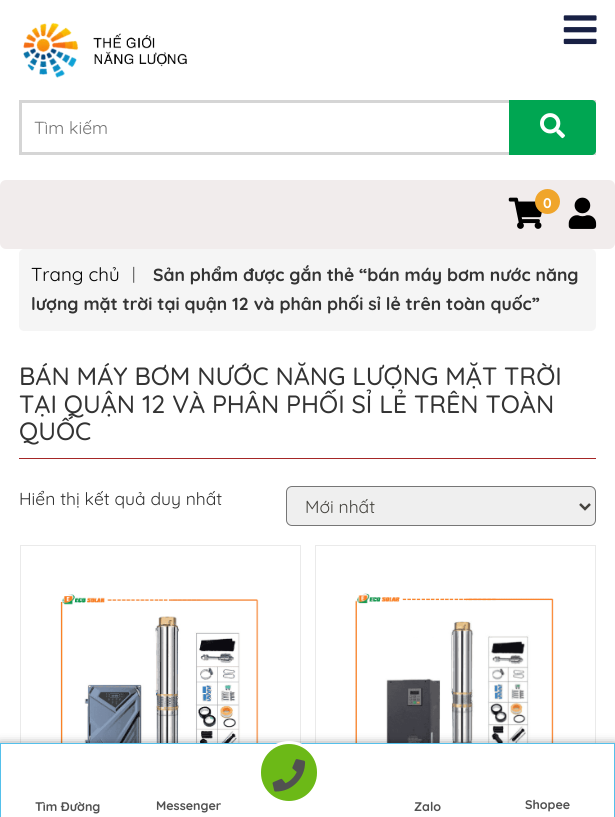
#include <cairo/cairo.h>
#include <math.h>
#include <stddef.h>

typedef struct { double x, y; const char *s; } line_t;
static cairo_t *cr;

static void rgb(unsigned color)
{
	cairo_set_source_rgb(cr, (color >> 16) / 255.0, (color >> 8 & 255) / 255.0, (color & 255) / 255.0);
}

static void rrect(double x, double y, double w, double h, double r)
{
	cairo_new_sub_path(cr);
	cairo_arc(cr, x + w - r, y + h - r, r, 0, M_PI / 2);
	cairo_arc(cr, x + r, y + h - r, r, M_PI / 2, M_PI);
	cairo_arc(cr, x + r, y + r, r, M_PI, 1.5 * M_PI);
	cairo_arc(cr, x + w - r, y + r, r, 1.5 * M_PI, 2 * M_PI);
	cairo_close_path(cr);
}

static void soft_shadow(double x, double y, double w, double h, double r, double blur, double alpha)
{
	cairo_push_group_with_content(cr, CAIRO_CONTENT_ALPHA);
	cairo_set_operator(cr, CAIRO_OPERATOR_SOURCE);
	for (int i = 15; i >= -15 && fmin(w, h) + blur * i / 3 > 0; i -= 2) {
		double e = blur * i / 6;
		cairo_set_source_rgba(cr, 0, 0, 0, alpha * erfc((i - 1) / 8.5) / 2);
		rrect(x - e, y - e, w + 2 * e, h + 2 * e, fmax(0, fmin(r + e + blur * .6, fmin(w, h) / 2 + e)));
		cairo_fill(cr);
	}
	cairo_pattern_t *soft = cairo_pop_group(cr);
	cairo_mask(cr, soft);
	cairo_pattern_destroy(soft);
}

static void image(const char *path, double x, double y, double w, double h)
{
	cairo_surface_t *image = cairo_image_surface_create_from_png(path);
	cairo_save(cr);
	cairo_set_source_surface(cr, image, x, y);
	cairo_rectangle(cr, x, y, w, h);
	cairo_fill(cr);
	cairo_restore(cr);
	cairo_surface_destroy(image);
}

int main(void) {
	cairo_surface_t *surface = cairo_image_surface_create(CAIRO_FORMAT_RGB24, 615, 817);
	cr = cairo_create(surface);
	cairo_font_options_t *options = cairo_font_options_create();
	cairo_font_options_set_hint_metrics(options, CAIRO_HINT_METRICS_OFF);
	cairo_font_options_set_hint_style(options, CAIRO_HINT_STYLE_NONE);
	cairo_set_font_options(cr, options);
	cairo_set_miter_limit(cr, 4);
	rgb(0xffffff);
	cairo_paint(cr);
	image("img/1.png", 563, 15, 34, 30);
	image("img/2.png", 23, 22, 164, 56);
	cairo_rectangle(cr, 20.5, 101.5, 574, 52);
	rgb(0xd5d5d5);
	cairo_set_line_width(cr, 3);
	cairo_stroke(cr);
	rgb(0x00a652);
	cairo_new_path(cr);
	cairo_move_to(cr, 509, 100);
	cairo_line_to(cr, 592, 100);
	cairo_curve_to(cr, 594, 100, 596, 102, 596, 104);
	cairo_line_to(cr, 596, 151);
	cairo_curve_to(cr, 596, 153, 594, 155, 592, 155);
	cairo_line_to(cr, 509, 155);
	cairo_close_path(cr);
	cairo_fill(cr);
	image("img/3.png", 540, 113, 25, 26);
	rgb(0xf1ecec);
	rrect(0, 180, 615, 69, 6);
	cairo_fill(cr);
	image("img/4.png", 508, 197, 34, 32);
	rgb(0xf0a52b);
	cairo_arc(cr, 547.5, 201.5, 12.5, 0, 2 * M_PI);
	cairo_fill(cr);
	image("img/5.png", 568, 197, 29, 32);
	image("img/7.png", 60, 594, 199, 149);
	cairo_rectangle(cr, 20.5, 545.5, 280, 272);
	rgb(0xeaeaea);
	cairo_set_line_width(cr, 1);
	cairo_stroke(cr);
	image("img/8.png", 355, 593, 199, 150);
	cairo_rectangle(cr, 315.5, 545.5, 280, 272);
	cairo_stroke(cr);
	rgb(0x000000);
	soft_shadow(0, 748, 615, 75, 0, 6, 1);
	rgb(0xffffff);
	cairo_rectangle(cr, 0.5, 743.5, 614, 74);
	cairo_fill_preserve(cr);
	rgb(0x54c0eb);
	cairo_stroke(cr);
	rgb(0x6cb917);
	rrect(259.5, 742.5, 59, 60, 29.5);
	cairo_fill_preserve(cr);
	rgb(0xffffff);
	cairo_set_line_width(cr, 3);
	cairo_stroke(cr);
	image("img/6.png", 272, 759, 34, 33);
	rgb(0xf5f5f5);
	rrect(19, 249, 577, 82, 5);
	cairo_fill(cr);
	rgb(0xa52626);
	cairo_rectangle(cr, 19, 458, 577, 1);
	cairo_fill(cr);
	rgb(0xefefef);
	rrect(286.5, 486.5, 309, 39, 5.5);
	cairo_fill_preserve(cr);
	rgb(0x767676);
	cairo_set_line_width(cr, 1);
	cairo_stroke(cr);
	cairo_new_path(cr);
	cairo_move_to(cr, 580, 504);
	cairo_line_to(cr, 585, 509);
	cairo_line_to(cr, 590, 504);
	rgb(0x46443f);
	cairo_set_line_width(cr, 2.5);
	cairo_stroke(cr);
	cairo_select_font_face(cr, "Quicksand", CAIRO_FONT_SLANT_NORMAL, CAIRO_FONT_WEIGHT_NORMAL);
	cairo_set_font_size(cr, 17.5);
	rgb(0x757575);
	cairo_move_to(cr, 34, 134);
	cairo_show_text(cr, "Tìm kiếm");
	cairo_select_font_face(cr, "Quicksand", CAIRO_FONT_SLANT_NORMAL, CAIRO_FONT_WEIGHT_BOLD);
	cairo_set_font_size(cr, 14);
	rgb(0xffffff);
	cairo_move_to(cr, 543, 208);
	cairo_show_text(cr, "0");
	cairo_set_font_size(cr, 12.5);
	rgb(0x515151);
	{
		static const line_t items[] = {
			{35, 811, "Tìm Đường"},
			{156, 810, "Messenger"},
			{414, 811, "Zalo"},
			{525, 809, "Shopee"},
		};
		for (size_t i = 0; i < sizeof items / sizeof *items; i++) {
			cairo_move_to(cr, items[i].x, items[i].y);
			cairo_show_text(cr, items[i].s);
		}
	}
	cairo_select_font_face(cr, "Quicksand", CAIRO_FONT_SLANT_NORMAL, CAIRO_FONT_WEIGHT_NORMAL);
	cairo_set_font_size(cr, 18.75);
	rgb(0x000000);
	cairo_move_to(cr, 31, 281);
	cairo_show_text(cr, "Trang chủ");
	cairo_select_font_face(cr, "Liberation Serif", CAIRO_FONT_SLANT_NORMAL, CAIRO_FONT_WEIGHT_NORMAL);
	cairo_set_font_size(cr, 17.5);
	rgb(0x333333);
	cairo_move_to(cr, 132, 279);
	cairo_show_text(cr, "|");
	cairo_select_font_face(cr, "Quicksand", CAIRO_FONT_SLANT_NORMAL, CAIRO_FONT_WEIGHT_BOLD);
	cairo_move_to(cr, 153, 281);
	cairo_show_text(cr, "Sản phẩm được gắn thẻ “bán máy bơm nước năng");
	cairo_move_to(cr, 31, 310);
	cairo_show_text(cr, "lượng mặt trời tại quận 12 và phân phối sỉ lẻ trên toàn quốc”");
	cairo_select_font_face(cr, "Quicksand Medium", CAIRO_FONT_SLANT_NORMAL, CAIRO_FONT_WEIGHT_NORMAL);
	cairo_set_font_size(cr, 25);
	{
		static const line_t items[] = {
			{19, 385, "BÁN MÁY BƠM NƯỚC NĂNG LƯỢNG MẶT TRỜI"},
			{19, 413, "TẠI QUẬN 12 VÀ PHÂN PHỐI SỈ LẺ TRÊN TOÀN"},
			{19, 440, "QUỐC"},
		};
		for (size_t i = 0; i < sizeof items / sizeof *items; i++) {
			cairo_move_to(cr, items[i].x, items[i].y);
			cairo_show_text(cr, items[i].s);
		}
	}
	cairo_select_font_face(cr, "Quicksand", CAIRO_FONT_SLANT_NORMAL, CAIRO_FONT_WEIGHT_NORMAL);
	cairo_set_font_size(cr, 17.5);
	cairo_move_to(cr, 19, 505);
	cairo_show_text(cr, "Hiển thị kết quả duy nhất");
	rgb(0x46443f);
	cairo_move_to(cr, 305, 513);
	cairo_show_text(cr, "Mới nhất");
	cairo_surface_write_to_png(surface, "page.png");
	cairo_font_options_destroy(options);
	cairo_destroy(cr);
	cairo_surface_destroy(surface);
	return 0;
}
